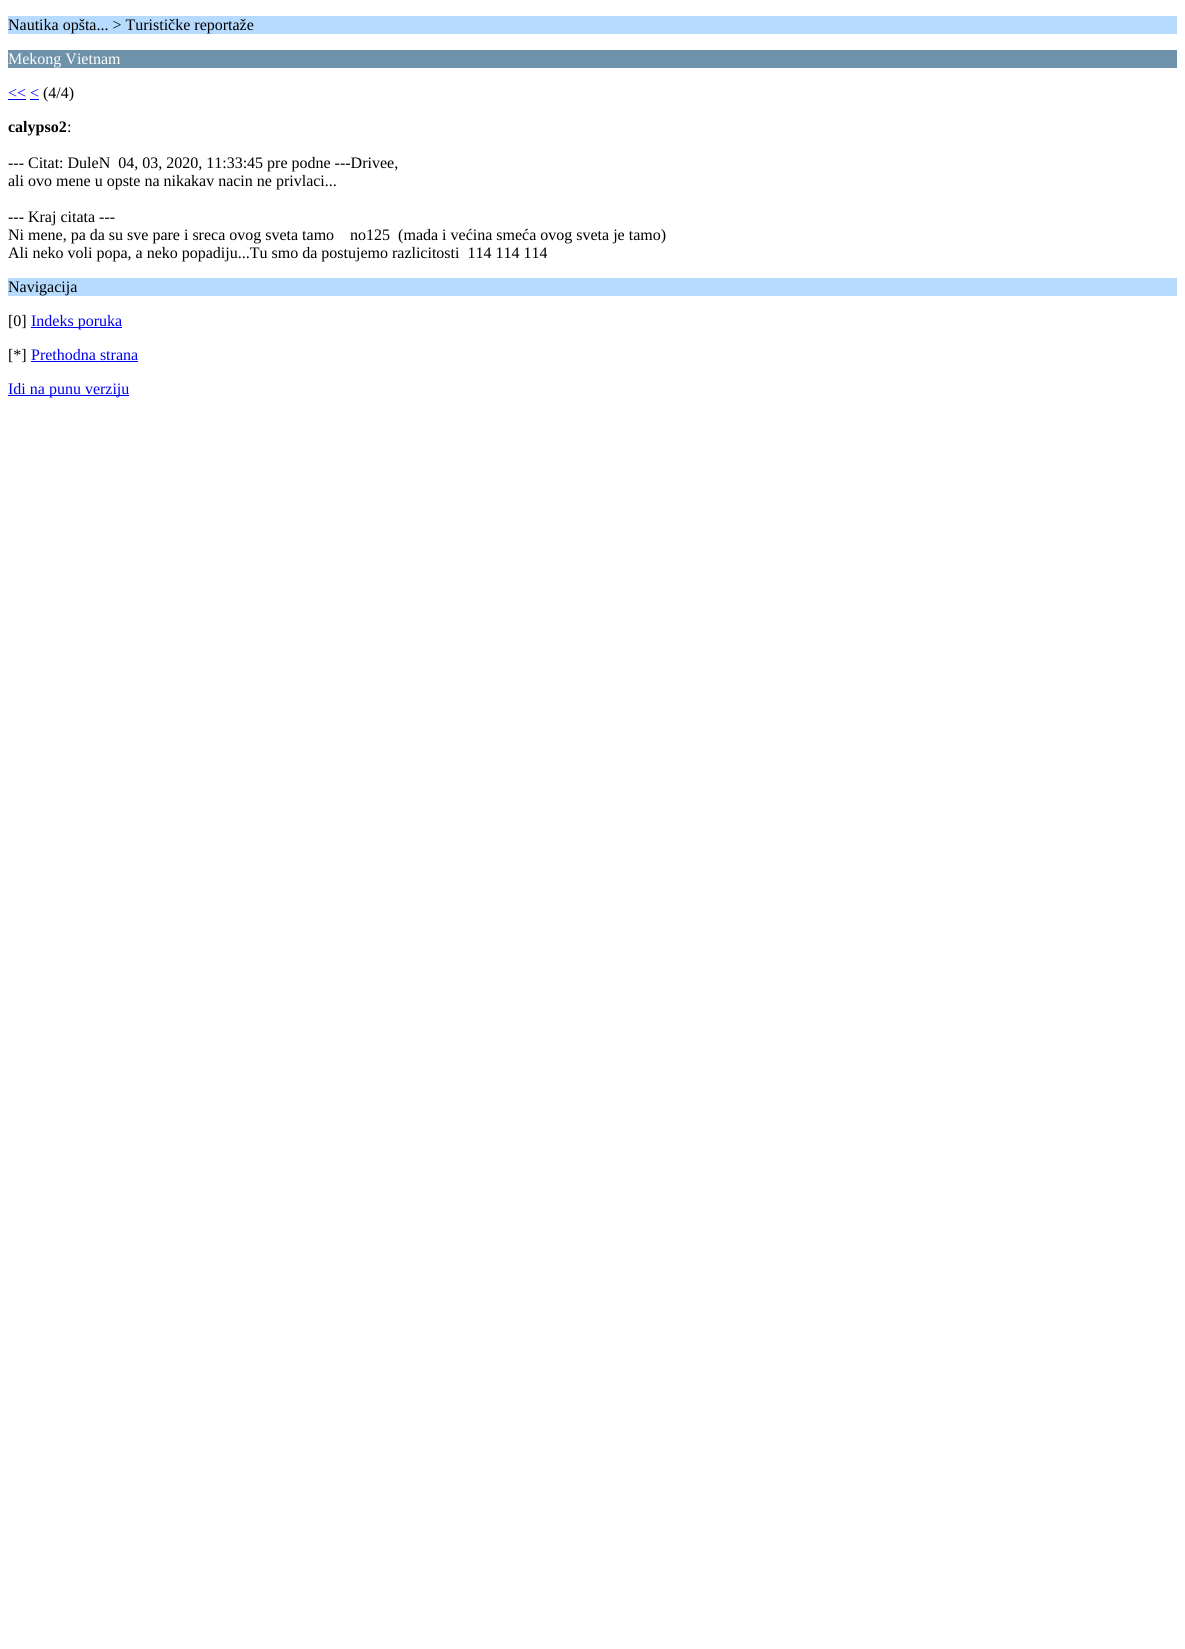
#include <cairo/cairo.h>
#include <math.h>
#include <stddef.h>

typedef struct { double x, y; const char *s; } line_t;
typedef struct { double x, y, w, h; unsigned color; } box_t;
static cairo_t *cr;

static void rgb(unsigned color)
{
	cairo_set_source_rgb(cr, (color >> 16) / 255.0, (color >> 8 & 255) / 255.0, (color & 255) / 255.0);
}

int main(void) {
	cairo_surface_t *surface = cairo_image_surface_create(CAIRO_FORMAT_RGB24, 1185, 1649);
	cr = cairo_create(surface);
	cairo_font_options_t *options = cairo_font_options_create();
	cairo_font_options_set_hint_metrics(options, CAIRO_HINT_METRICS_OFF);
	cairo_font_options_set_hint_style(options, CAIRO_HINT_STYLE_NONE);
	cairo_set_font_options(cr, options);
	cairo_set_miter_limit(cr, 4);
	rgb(0xffffff);
	cairo_paint(cr);
	{
		static const box_t items[] = {
			{8, 16, 1169, 18, 0xb6dbff},
			{8, 50, 1169, 18, 0x6d92aa},
			{8, 99, 18, 1, 0x0000ee},
			{30, 99, 9, 1, 0x0000ee},
			{8, 278, 1169, 18, 0xb6dbff},
			{31, 327, 91, 1, 0x0000ee},
			{31, 361, 107, 1, 0x0000ee},
			{8, 395, 121, 1, 0x0000ee},
		};
		for (size_t i = 0; i < sizeof items / sizeof *items; i++) {
			rgb(items[i].color);
			cairo_rectangle(cr, items[i].x, items[i].y, items[i].w, items[i].h);
			cairo_fill(cr);
		}
	}
	cairo_select_font_face(cr, "Liberation Serif", CAIRO_FONT_SLANT_NORMAL, CAIRO_FONT_WEIGHT_NORMAL);
	cairo_set_font_size(cr, 16);
	rgb(0x000000);
	cairo_move_to(cr, 8, 30);
	cairo_show_text(cr, "Nautika opšta... > Turističke reportaže");
	rgb(0xffffff);
	cairo_move_to(cr, 8, 64);
	cairo_show_text(cr, "Mekong Vietnam");
	rgb(0x0000ee);
	cairo_move_to(cr, 8, 98);
	cairo_show_text(cr, "<< <");
	rgb(0x000000);
	cairo_move_to(cr, 43, 98);
	cairo_show_text(cr, "(4/4)");
	cairo_select_font_face(cr, "Liberation Serif", CAIRO_FONT_SLANT_NORMAL, CAIRO_FONT_WEIGHT_BOLD);
	cairo_move_to(cr, 8, 132);
	cairo_show_text(cr, "calypso2");
	cairo_select_font_face(cr, "Liberation Serif", CAIRO_FONT_SLANT_NORMAL, CAIRO_FONT_WEIGHT_NORMAL);
	{
		static const line_t items[] = {
			{67, 132, ":"},
			{8, 168, "--- Citat: DuleN  04, 03, 2020, 11:33:45 pre podne ---Drivee,"},
			{8, 186, "ali ovo mene u opste na nikakav nacin ne privlaci..."},
			{8, 222, "--- Kraj citata ---"},
			{8, 240, "Ni mene, pa da su sve pare i sreca ovog sveta tamo    no125  (mada i većina smeća ovog sveta je tamo)"},
			{8, 258, "Ali neko voli popa, a neko popadiju...Tu smo da postujemo razlicitosti  114 114 114"},
			{8, 292, "Navigacija"},
			{8, 326, "[0]"},
		};
		for (size_t i = 0; i < sizeof items / sizeof *items; i++) {
			cairo_move_to(cr, items[i].x, items[i].y);
			cairo_show_text(cr, items[i].s);
		}
	}
	rgb(0x0000ee);
	cairo_move_to(cr, 31, 326);
	cairo_show_text(cr, "Indeks poruka");
	rgb(0x000000);
	cairo_move_to(cr, 8, 360);
	cairo_show_text(cr, "[*]");
	rgb(0x0000ee);
	cairo_move_to(cr, 31, 360);
	cairo_show_text(cr, "Prethodna strana");
	cairo_move_to(cr, 8, 394);
	cairo_show_text(cr, "Idi na punu verziju");
	cairo_surface_write_to_png(surface, "page.png");
	cairo_font_options_destroy(options);
	cairo_destroy(cr);
	cairo_surface_destroy(surface);
	return 0;
}
